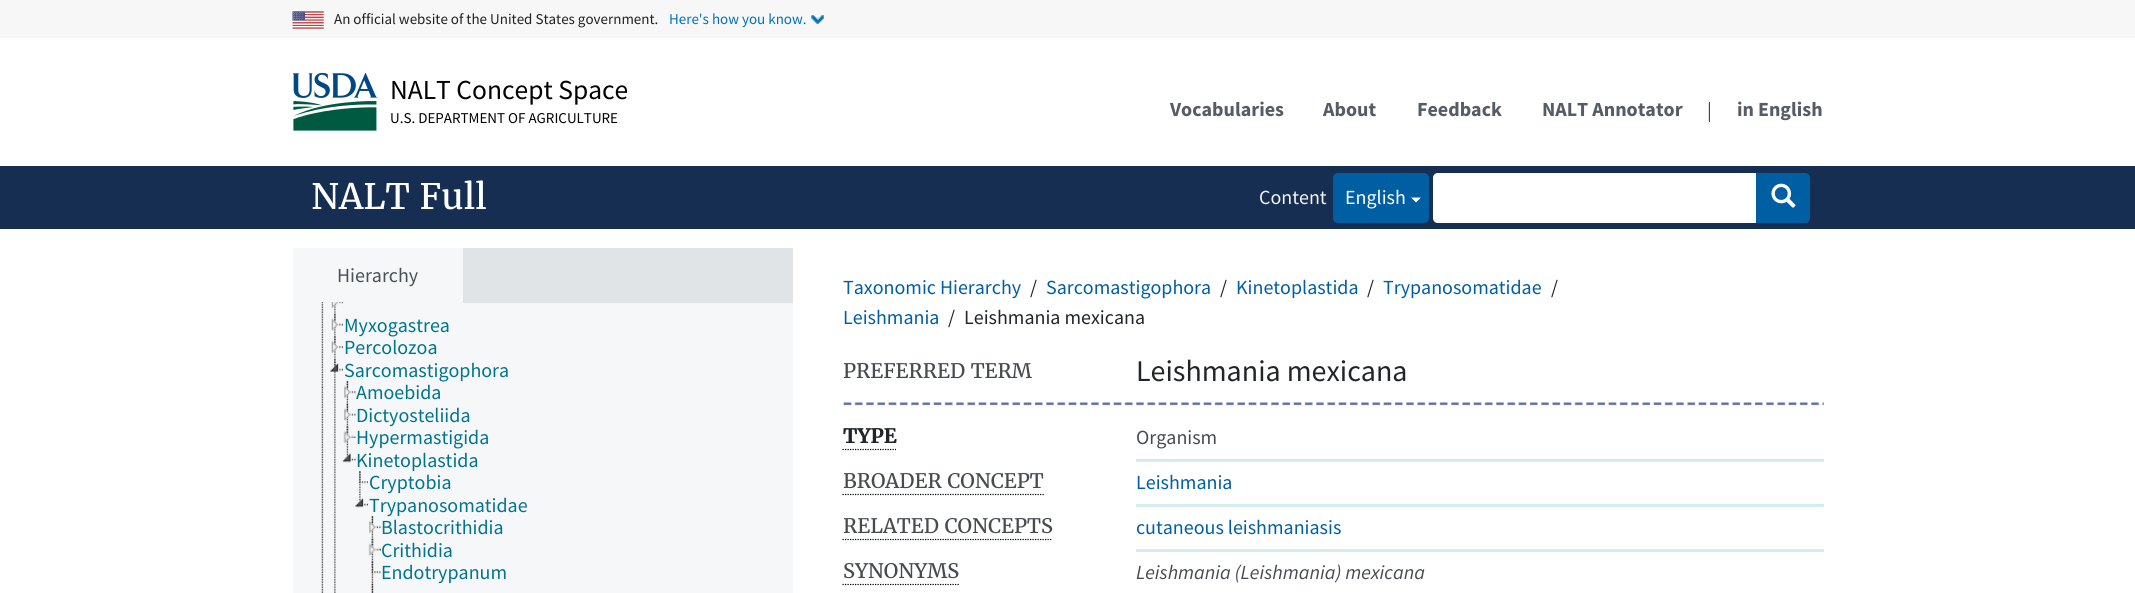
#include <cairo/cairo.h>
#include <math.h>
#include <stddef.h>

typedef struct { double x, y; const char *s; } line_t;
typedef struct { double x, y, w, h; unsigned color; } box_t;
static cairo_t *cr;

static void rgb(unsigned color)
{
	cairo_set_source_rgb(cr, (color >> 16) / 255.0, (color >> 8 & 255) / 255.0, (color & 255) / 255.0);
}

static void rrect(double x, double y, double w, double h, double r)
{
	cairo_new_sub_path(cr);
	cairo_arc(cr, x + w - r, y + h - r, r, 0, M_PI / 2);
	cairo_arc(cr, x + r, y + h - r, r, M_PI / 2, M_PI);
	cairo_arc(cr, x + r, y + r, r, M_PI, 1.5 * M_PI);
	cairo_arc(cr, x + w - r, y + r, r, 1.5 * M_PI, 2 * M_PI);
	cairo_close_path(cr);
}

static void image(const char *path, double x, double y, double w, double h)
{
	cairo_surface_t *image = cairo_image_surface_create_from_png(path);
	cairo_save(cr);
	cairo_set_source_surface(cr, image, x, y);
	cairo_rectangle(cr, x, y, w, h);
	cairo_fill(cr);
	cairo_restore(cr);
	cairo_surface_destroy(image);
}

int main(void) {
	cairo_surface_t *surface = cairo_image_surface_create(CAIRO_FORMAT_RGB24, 2135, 593);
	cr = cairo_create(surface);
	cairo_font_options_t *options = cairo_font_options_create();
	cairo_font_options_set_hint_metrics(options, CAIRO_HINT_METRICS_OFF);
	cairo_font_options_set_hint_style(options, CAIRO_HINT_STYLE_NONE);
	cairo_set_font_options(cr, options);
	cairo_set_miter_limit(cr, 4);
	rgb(0xffffff);
	cairo_paint(cr);
	rgb(0xf7f7f7);
	cairo_rectangle(cr, 0, 0, 2135, 38);
	cairo_fill(cr);
	image("img/1.png", 292, 11, 32, 18);
	image("img/2.png", 811, 15, 13, 9);
	image("img/3.png", 293, 73, 85, 58);
	rgb(0x162e51);
	cairo_rectangle(cr, 0, 166, 2135, 63);
	cairo_fill(cr);
	rgb(0x005ea2);
	rrect(1333, 173, 96, 50, 5);
	cairo_fill(cr);
	rgb(0xffffff);
	cairo_new_path(cr);
	cairo_move_to(cr, 1411, 197.5);
	cairo_line_to(cr, 1421, 197.5);
	cairo_line_to(cr, 1416, 202.5);
	cairo_close_path(cr);
	cairo_fill(cr);
	cairo_new_path(cr);
	cairo_move_to(cr, 1438, 173);
	cairo_line_to(cr, 1758, 173);
	cairo_line_to(cr, 1758, 223);
	cairo_line_to(cr, 1438, 223);
	cairo_curve_to(cr, 1435, 223, 1433, 221, 1433, 218);
	cairo_line_to(cr, 1433, 178);
	cairo_curve_to(cr, 1433, 175, 1435, 173, 1438, 173);
	cairo_close_path(cr);
	cairo_fill(cr);
	rgb(0x005ea2);
	cairo_new_path(cr);
	cairo_move_to(cr, 1756, 173);
	cairo_line_to(cr, 1805, 173);
	cairo_curve_to(cr, 1808, 173, 1810, 175, 1810, 178);
	cairo_line_to(cr, 1810, 218);
	cairo_curve_to(cr, 1810, 221, 1808, 223, 1805, 223);
	cairo_line_to(cr, 1756, 223);
	cairo_close_path(cr);
	cairo_fill(cr);
	image("img/4.png", 1771, 183, 25, 25);
	{
		static const box_t items[] = {
			{463, 248, 330, 55, 0xe0e4e7},
			{293, 248, 170, 55, 0xf6f7f8},
			{293, 303, 500, 290, 0xf6f7f8},
		};
		for (size_t i = 0; i < sizeof items / sizeof *items; i++) {
			rgb(items[i].color);
			cairo_rectangle(cr, items[i].x, items[i].y, items[i].w, items[i].h);
			cairo_fill(cr);
		}
	}
	image("img/5.png", 321, 302, 3, 291);
	image("img/6.png", 334, 303, 2, 11);
	image("img/7.png", 331, 302, 12, 7);
	image("img/8.png", 334, 313, 2, 23);
	image("img/9.png", 331, 313, 12, 18);
	image("img/10.png", 334, 336, 2, 23);
	image("img/11.png", 331, 336, 12, 18);
	image("img/12.png", 334, 358, 2, 235);
	image("img/13.png", 330, 358, 13, 14);
	image("img/14.png", 346, 381, 3, 23);
	image("img/16.png", 346, 403, 3, 24);
	image("img/17.png", 344, 403, 12, 18);
	image("img/18.png", 346, 426, 3, 23);
	image("img/19.png", 343, 425, 13, 19);
	image("img/20.png", 342, 448, 14, 15);
	image("img/21.png", 359, 470, 2, 24);
	image("img/23.png", 355, 493, 13, 15);
	image("img/14.png", 371, 516, 3, 23);
	image("img/16.png", 371, 538, 3, 24);
	image("img/25.png", 368, 538, 13, 18);
	image("img/26.png", 371, 560, 3, 24);
	image("img/27.png", 371, 561, 10, 13);
	image("img/28.png", 371, 583, 3, 10);
	image("img/29.png", 371, 583, 3, 10);
	image("img/30.png", 843, 402, 981, 4);
	cairo_new_path(cr);
	cairo_move_to(cr, 842.5, 449.5);
	cairo_line_to(cr, 896, 449.5);
	rgb(0x000000);
	cairo_set_line_width(cr, 1.2);
	cairo_set_dash(cr, (double[]){1.25, 1.25}, 2, 0);
	cairo_stroke(cr);
	rgb(0xd4edeb);
	cairo_rectangle(cr, 1136, 459, 688, 3);
	cairo_fill(cr);
	cairo_new_path(cr);
	cairo_move_to(cr, 842.5, 494.5);
	cairo_line_to(cr, 1044, 494.5);
	rgb(0x000000);
	cairo_stroke(cr);
	rgb(0xd4edeb);
	cairo_rectangle(cr, 1136, 504, 688, 3);
	cairo_fill(cr);
	cairo_new_path(cr);
	cairo_move_to(cr, 842.5, 539.5);
	cairo_line_to(cr, 1052.5, 539.5);
	rgb(0x000000);
	cairo_stroke(cr);
	rgb(0xd4edeb);
	cairo_rectangle(cr, 1136, 549, 688, 3);
	cairo_fill(cr);
	cairo_new_path(cr);
	cairo_move_to(cr, 842.5, 584.5);
	cairo_line_to(cr, 959, 584.5);
	rgb(0x000000);
	cairo_stroke(cr);
	cairo_select_font_face(cr, "Source Sans Pro", CAIRO_FONT_SLANT_NORMAL, CAIRO_FONT_WEIGHT_NORMAL);
	cairo_set_font_size(cr, 15);
	rgb(0x212121);
	cairo_move_to(cr, 334, 24);
	cairo_show_text(cr, "An official website of the United States government.");
	rgb(0x0071bc);
	cairo_move_to(cr, 669, 24);
	cairo_show_text(cr, "Here's how you know.");
	cairo_set_font_size(cr, 27.5);
	rgb(0x000000);
	cairo_move_to(cr, 390, 99);
	cairo_show_text(cr, "NALT Concept Space");
	cairo_set_font_size(cr, 15);
	cairo_move_to(cr, 390, 123);
	cairo_show_text(cr, "U.S. DEPARTMENT OF AGRICULTURE");
	cairo_select_font_face(cr, "Source Sans Pro", CAIRO_FONT_SLANT_NORMAL, CAIRO_FONT_WEIGHT_BOLD);
	cairo_set_font_size(cr, 20);
	rgb(0x565c65);
	{
		static const line_t items[] = {
			{1170, 116, "Vocabularies"},
			{1323, 116, "About"},
			{1417, 116, "Feedback"},
			{1542, 116, "NALT Annotator"},
		};
		for (size_t i = 0; i < sizeof items / sizeof *items; i++) {
			cairo_move_to(cr, items[i].x, items[i].y);
			cairo_show_text(cr, items[i].s);
		}
	}
	cairo_select_font_face(cr, "Source Sans Pro", CAIRO_FONT_SLANT_NORMAL, CAIRO_FONT_WEIGHT_NORMAL);
	rgb(0x394554);
	cairo_move_to(cr, 1707, 117);
	cairo_show_text(cr, "|");
	cairo_select_font_face(cr, "Source Sans Pro", CAIRO_FONT_SLANT_NORMAL, CAIRO_FONT_WEIGHT_BOLD);
	rgb(0x565c65);
	cairo_move_to(cr, 1737, 116);
	cairo_show_text(cr, "in English");
	cairo_select_font_face(cr, "Merriweather", CAIRO_FONT_SLANT_NORMAL, CAIRO_FONT_WEIGHT_NORMAL);
	cairo_set_font_size(cr, 35);
	rgb(0xffffff);
	cairo_move_to(cr, 311, 209);
	cairo_show_text(cr, "NALT Full");
	cairo_select_font_face(cr, "Source Sans Pro", CAIRO_FONT_SLANT_NORMAL, CAIRO_FONT_WEIGHT_NORMAL);
	cairo_set_font_size(cr, 20);
	rgb(0xf3f5f6);
	cairo_move_to(cr, 1259, 204);
	cairo_show_text(cr, "Content");
	rgb(0xffffff);
	cairo_move_to(cr, 1345, 204);
	cairo_show_text(cr, "English");
	rgb(0x495057);
	cairo_move_to(cr, 337, 282);
	cairo_show_text(cr, "Hierarchy");
	rgb(0x00748f);
	{
		static const line_t items[] = {
			{344, 332, "Myxogastrea"},
			{344, 354, "Percolozoa"},
			{344, 377, "Sarcomastigophora"},
		};
		for (size_t i = 0; i < sizeof items / sizeof *items; i++) {
			cairo_move_to(cr, items[i].x, items[i].y);
			cairo_show_text(cr, items[i].s);
		}
	}
	image("img/15.png", 344, 381, 12, 18);
	{
		static const line_t items[] = {
			{356, 399, "Amoebida"},
			{356, 422, "Dictyosteliida"},
			{356, 444, "Hypermastigida"},
			{356, 467, "Kinetoplastida"},
		};
		for (size_t i = 0; i < sizeof items / sizeof *items; i++) {
			cairo_move_to(cr, items[i].x, items[i].y);
			cairo_show_text(cr, items[i].s);
		}
	}
	image("img/22.png", 359, 471, 9, 13);
	cairo_move_to(cr, 369, 489);
	cairo_show_text(cr, "Cryptobia");
	cairo_move_to(cr, 369, 512);
	cairo_show_text(cr, "Trypanosomatidae");
	image("img/24.png", 369, 515, 12, 19);
	{
		static const line_t items[] = {
			{381, 534, "Blastocrithidia"},
			{381, 557, "Crithidia"},
			{381, 579, "Endotrypanum"},
		};
		for (size_t i = 0; i < sizeof items / sizeof *items; i++) {
			cairo_move_to(cr, items[i].x, items[i].y);
			cairo_show_text(cr, items[i].s);
		}
	}
	rgb(0x005ea2);
	cairo_move_to(cr, 843, 294);
	cairo_show_text(cr, "Taxonomic Hierarchy");
	rgb(0x212529);
	cairo_move_to(cr, 1030, 294);
	cairo_show_text(cr, "/");
	rgb(0x005ea2);
	cairo_move_to(cr, 1046, 294);
	cairo_show_text(cr, "Sarcomastigophora");
	rgb(0x212529);
	cairo_move_to(cr, 1220, 294);
	cairo_show_text(cr, "/");
	rgb(0x005ea2);
	cairo_move_to(cr, 1236, 294);
	cairo_show_text(cr, "Kinetoplastida");
	rgb(0x212529);
	cairo_move_to(cr, 1367, 294);
	cairo_show_text(cr, "/");
	rgb(0x005ea2);
	cairo_move_to(cr, 1383, 294);
	cairo_show_text(cr, "Trypanosomatidae");
	rgb(0x212529);
	cairo_move_to(cr, 1551, 294);
	cairo_show_text(cr, "/");
	rgb(0x005ea2);
	cairo_move_to(cr, 843, 324);
	cairo_show_text(cr, "Leishmania");
	rgb(0x212529);
	cairo_move_to(cr, 948, 324);
	cairo_show_text(cr, "/");
	cairo_move_to(cr, 964, 324);
	cairo_show_text(cr, "Leishmania mexicana");
	cairo_select_font_face(cr, "Merriweather", CAIRO_FONT_SLANT_NORMAL, CAIRO_FONT_WEIGHT_NORMAL);
	rgb(0x474b4f);
	cairo_move_to(cr, 843, 378);
	cairo_show_text(cr, "PREFERRED TERM");
	cairo_select_font_face(cr, "Source Sans Pro", CAIRO_FONT_SLANT_NORMAL, CAIRO_FONT_WEIGHT_NORMAL);
	cairo_set_font_size(cr, 30);
	rgb(0x212529);
	cairo_move_to(cr, 1136, 381);
	cairo_show_text(cr, "Leishmania mexicana");
	cairo_select_font_face(cr, "Merriweather", CAIRO_FONT_SLANT_NORMAL, CAIRO_FONT_WEIGHT_BOLD);
	cairo_set_font_size(cr, 20);
	cairo_move_to(cr, 843, 443);
	cairo_show_text(cr, "TYPE");
	cairo_select_font_face(cr, "Source Sans Pro", CAIRO_FONT_SLANT_NORMAL, CAIRO_FONT_WEIGHT_NORMAL);
	rgb(0x474b4f);
	cairo_move_to(cr, 1136, 444);
	cairo_show_text(cr, "Organism");
	cairo_select_font_face(cr, "Merriweather", CAIRO_FONT_SLANT_NORMAL, CAIRO_FONT_WEIGHT_NORMAL);
	cairo_move_to(cr, 843, 488);
	cairo_show_text(cr, "BROADER CONCEPT");
	cairo_select_font_face(cr, "Source Sans Pro", CAIRO_FONT_SLANT_NORMAL, CAIRO_FONT_WEIGHT_NORMAL);
	rgb(0x005ea2);
	cairo_move_to(cr, 1136, 489);
	cairo_show_text(cr, "Leishmania");
	cairo_select_font_face(cr, "Merriweather", CAIRO_FONT_SLANT_NORMAL, CAIRO_FONT_WEIGHT_NORMAL);
	rgb(0x474b4f);
	cairo_move_to(cr, 843, 533);
	cairo_show_text(cr, "RELATED CONCEPTS");
	cairo_select_font_face(cr, "Source Sans Pro", CAIRO_FONT_SLANT_NORMAL, CAIRO_FONT_WEIGHT_NORMAL);
	rgb(0x005ea2);
	cairo_move_to(cr, 1136, 534);
	cairo_show_text(cr, "cutaneous leishmaniasis");
	cairo_select_font_face(cr, "Merriweather", CAIRO_FONT_SLANT_NORMAL, CAIRO_FONT_WEIGHT_NORMAL);
	rgb(0x474b4f);
	cairo_move_to(cr, 843, 578);
	cairo_show_text(cr, "SYNONYMS");
	cairo_select_font_face(cr, "Source Sans Pro", CAIRO_FONT_SLANT_ITALIC, CAIRO_FONT_WEIGHT_NORMAL);
	cairo_move_to(cr, 1136, 579);
	cairo_show_text(cr, "Leishmania (Leishmania) mexicana");
	cairo_surface_write_to_png(surface, "page.png");
	cairo_font_options_destroy(options);
	cairo_destroy(cr);
	cairo_surface_destroy(surface);
	return 0;
}
